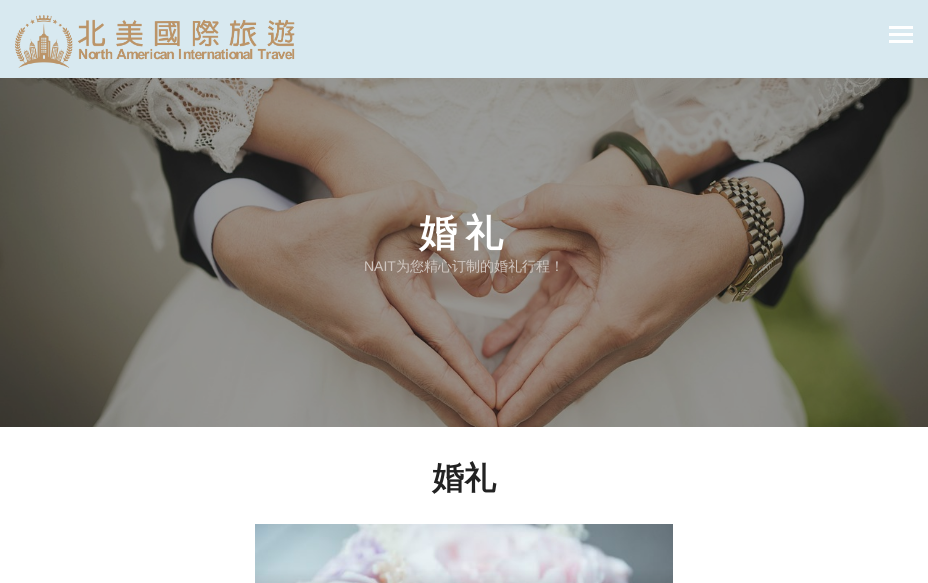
#include <cairo/cairo.h>
#include <math.h>
#include <stddef.h>

typedef struct { double x, y, w, h; unsigned color; } box_t;
static cairo_t *cr;

static void rgb(unsigned color)
{
	cairo_set_source_rgb(cr, (color >> 16) / 255.0, (color >> 8 & 255) / 255.0, (color & 255) / 255.0);
}

static void tracked(double x, double y, const char *s, double letter, double word)
{
	cairo_move_to(cr, x, y);
	while (*s) {
		char ch[5] = {0};
		int n = 0;
		do ch[n++] = *s++; while ((*s & 0xC0) == 0x80);
		cairo_show_text(cr, ch);
		cairo_rel_move_to(cr, letter + word * (*ch == ' '), 0);
	}
}

static void image(const char *path, double x, double y, double w, double h)
{
	cairo_surface_t *image = cairo_image_surface_create_from_png(path);
	cairo_save(cr);
	cairo_set_source_surface(cr, image, x, y);
	cairo_rectangle(cr, x, y, w, h);
	cairo_fill(cr);
	cairo_restore(cr);
	cairo_surface_destroy(image);
}

int main(void) {
	cairo_surface_t *surface = cairo_image_surface_create(CAIRO_FORMAT_RGB24, 928, 583);
	cr = cairo_create(surface);
	cairo_font_options_t *options = cairo_font_options_create();
	cairo_font_options_set_hint_metrics(options, CAIRO_HINT_METRICS_OFF);
	cairo_font_options_set_hint_style(options, CAIRO_HINT_STYLE_NONE);
	cairo_set_font_options(cr, options);
	cairo_set_miter_limit(cr, 4);
	rgb(0xffffff);
	cairo_paint(cr);
	rgb(0xd8e9f0);
	cairo_rectangle(cr, 0, 0, 928, 78);
	cairo_fill(cr);
	image("img/1.png", 15, 15, 280, 53);
	{
		static const box_t items[] = {
			{889, 33, 24, 3, 0xffffff},
			{889, 26, 24, 3, 0xffffff},
			{889, 40, 24, 3, 0xffffff},
		};
		for (size_t i = 0; i < sizeof items / sizeof *items; i++) {
			rgb(items[i].color);
			cairo_rectangle(cr, items[i].x, items[i].y, items[i].w, items[i].h);
			cairo_fill(cr);
		}
	}
	image("img/2.png", 0, 78, 928, 349);
	image("img/3.png", 255, 524, 418, 59);
	cairo_select_font_face(cr, "WenQuanYi Zen Hei", CAIRO_FONT_SLANT_NORMAL, CAIRO_FONT_WEIGHT_BOLD);
	cairo_set_font_size(cr, 38);
	tracked(419, 246, "婚礼", 8, 0);
	cairo_select_font_face(cr, "Liberation Sans", CAIRO_FONT_SLANT_NORMAL, CAIRO_FONT_WEIGHT_NORMAL);
	cairo_set_font_size(cr, 14);
	rgb(0xcfc6c0);
	cairo_move_to(cr, 364, 271);
	cairo_show_text(cr, "NAIT");
	cairo_select_font_face(cr, "WenQuanYi Zen Hei Medium", CAIRO_FONT_SLANT_NORMAL, CAIRO_FONT_WEIGHT_NORMAL);
	cairo_move_to(cr, 396, 271);
	cairo_show_text(cr, "为您精心订制的婚礼行程！");
	cairo_select_font_face(cr, "WenQuanYi Zen Hei", CAIRO_FONT_SLANT_NORMAL, CAIRO_FONT_WEIGHT_BOLD);
	cairo_set_font_size(cr, 32);
	rgb(0x222222);
	cairo_move_to(cr, 432, 489);
	cairo_show_text(cr, "婚礼");
	cairo_surface_write_to_png(surface, "page.png");
	cairo_font_options_destroy(options);
	cairo_destroy(cr);
	cairo_surface_destroy(surface);
	return 0;
}
